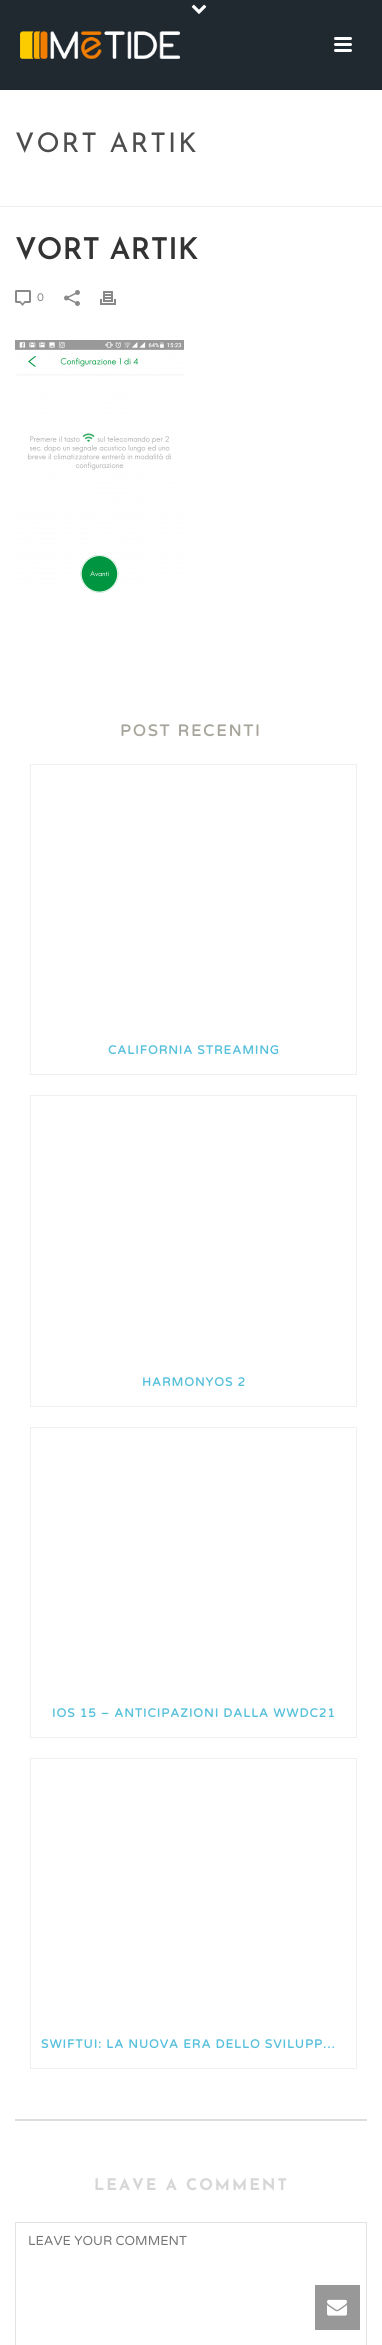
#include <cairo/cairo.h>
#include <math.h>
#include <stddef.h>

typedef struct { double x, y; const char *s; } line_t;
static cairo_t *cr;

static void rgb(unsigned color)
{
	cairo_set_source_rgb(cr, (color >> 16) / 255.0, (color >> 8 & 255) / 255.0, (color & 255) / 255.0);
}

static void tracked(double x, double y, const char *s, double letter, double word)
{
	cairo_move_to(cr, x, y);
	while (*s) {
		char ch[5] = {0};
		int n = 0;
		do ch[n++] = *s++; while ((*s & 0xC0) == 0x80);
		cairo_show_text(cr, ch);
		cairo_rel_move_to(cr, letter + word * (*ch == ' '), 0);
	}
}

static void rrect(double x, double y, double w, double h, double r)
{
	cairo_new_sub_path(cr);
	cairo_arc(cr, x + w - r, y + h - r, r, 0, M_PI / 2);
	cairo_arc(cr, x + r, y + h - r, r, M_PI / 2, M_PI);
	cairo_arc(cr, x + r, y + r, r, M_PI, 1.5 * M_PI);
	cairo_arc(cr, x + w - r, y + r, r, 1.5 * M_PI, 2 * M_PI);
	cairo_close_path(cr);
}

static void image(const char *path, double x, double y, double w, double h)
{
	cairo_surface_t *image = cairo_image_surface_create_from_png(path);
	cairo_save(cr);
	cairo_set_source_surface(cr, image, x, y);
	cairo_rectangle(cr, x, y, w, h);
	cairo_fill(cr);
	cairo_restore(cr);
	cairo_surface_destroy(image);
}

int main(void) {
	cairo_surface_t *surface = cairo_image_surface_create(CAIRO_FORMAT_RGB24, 382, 2345);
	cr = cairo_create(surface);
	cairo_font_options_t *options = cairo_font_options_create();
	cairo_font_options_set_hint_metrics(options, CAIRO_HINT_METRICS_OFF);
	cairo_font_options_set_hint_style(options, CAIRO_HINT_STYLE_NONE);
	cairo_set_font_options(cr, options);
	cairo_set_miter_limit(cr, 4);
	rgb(0xffffff);
	cairo_paint(cr);
	rgb(0xededed);
	cairo_rectangle(cr, 0, 206, 382, 1);
	cairo_fill(cr);
	rgb(0x202830);
	cairo_rectangle(cr, 0, 0, 382, 90);
	cairo_fill(cr);
	image("img/1.png", 191, 4, 16, 10);
	image("img/2.png", 20, 31, 160, 28);
	rgb(0xffffff);
	rrect(334, 37, 18, 3, 1.5);
	cairo_fill(cr);
	rrect(334, 43, 18, 3, 1.5);
	cairo_fill(cr);
	rrect(334, 49, 18, 3, 1.5);
	cairo_fill(cr);
	image("img/3.png", 15, 290, 16, 16);
	image("img/4.png", 64, 290, 16, 16);
	image("img/5.png", 100, 291, 16, 14);
	image("img/6.png", 15, 340, 169, 253);
	rgb(0xdddddd);
	cairo_rectangle(cr, 15, 2119, 352, 2);
	cairo_fill(cr);
	cairo_rectangle(cr, 30.5, 764.5, 326, 310);
	rgb(0xefefef);
	cairo_set_line_width(cr, 1);
	cairo_stroke(cr);
	cairo_rectangle(cr, 30.5, 1095.5, 326, 311);
	cairo_stroke(cr);
	cairo_rectangle(cr, 30.5, 1427.5, 326, 310);
	cairo_stroke(cr);
	cairo_rectangle(cr, 30.5, 1758.5, 326, 310);
	cairo_stroke(cr);
	cairo_rectangle(cr, 15.5, 2222.5, 351, 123);
	rgb(0xe3e3e3);
	cairo_stroke(cr);
	rgb(0x989898);
	cairo_rectangle(cr, 315, 2285, 45, 45);
	cairo_fill(cr);
	image("img/7.png", 327, 2299, 20, 17);
	cairo_select_font_face(cr, "Josefin Sans", CAIRO_FONT_SLANT_NORMAL, CAIRO_FONT_WEIGHT_NORMAL);
	cairo_set_font_size(cr, 27);
	rgb(0x4d4d4d);
	tracked(15, 152, "VORT ARTIK", 2, 0);
	cairo_select_font_face(cr, "Josefin Sans SemiBold", CAIRO_FONT_SLANT_NORMAL, CAIRO_FONT_WEIGHT_NORMAL);
	cairo_set_font_size(cr, 30);
	rgb(0x333333);
	cairo_move_to(cr, 15, 259);
	cairo_show_text(cr, "VORT ARTIK");
	cairo_select_font_face(cr, "Varela Round", CAIRO_FONT_SLANT_NORMAL, CAIRO_FONT_WEIGHT_NORMAL);
	cairo_set_font_size(cr, 11);
	rgb(0x898989);
	cairo_move_to(cr, 37, 301);
	cairo_show_text(cr, "0");
	cairo_select_font_face(cr, "Varela Round", CAIRO_FONT_SLANT_NORMAL, CAIRO_FONT_WEIGHT_BOLD);
	cairo_set_font_size(cr, 16);
	rgb(0xa8a59c);
	tracked(120, 736, "POST RECENTI", 2, 0);
	cairo_set_font_size(cr, 12);
	rgb(0x57c0db);
	{
		static const line_t items[] = {
			{108, 1054, "CALIFORNIA STREAMING"},
			{142, 1386, "HARMONYOS 2"},
			{52, 1717, "IOS 15 – ANTICIPAZIONI DALLA WWDC21"},
			{41, 2048, "SWIFTUI: LA NUOVA ERA DELLO SVILUPP…"},
		};
		for (size_t i = 0; i < sizeof items / sizeof *items; i++) {
			tracked(items[i].x, items[i].y, items[i].s, 1, 0);
		}
	}
	cairo_select_font_face(cr, "Josefin Sans", CAIRO_FONT_SLANT_NORMAL, CAIRO_FONT_WEIGHT_BOLD);
	cairo_set_font_size(cr, 16);
	rgb(0xd6d6d6);
	tracked(94, 2190, "LEAVE A COMMENT", 2, 0);
	cairo_select_font_face(cr, "Varela Round", CAIRO_FONT_SLANT_NORMAL, CAIRO_FONT_WEIGHT_NORMAL);
	cairo_set_font_size(cr, 13);
	rgb(0x757575);
	cairo_move_to(cr, 28, 2245);
	cairo_show_text(cr, "LEAVE YOUR COMMENT");
	cairo_surface_write_to_png(surface, "page.png");
	cairo_font_options_destroy(options);
	cairo_destroy(cr);
	cairo_surface_destroy(surface);
	return 0;
}
